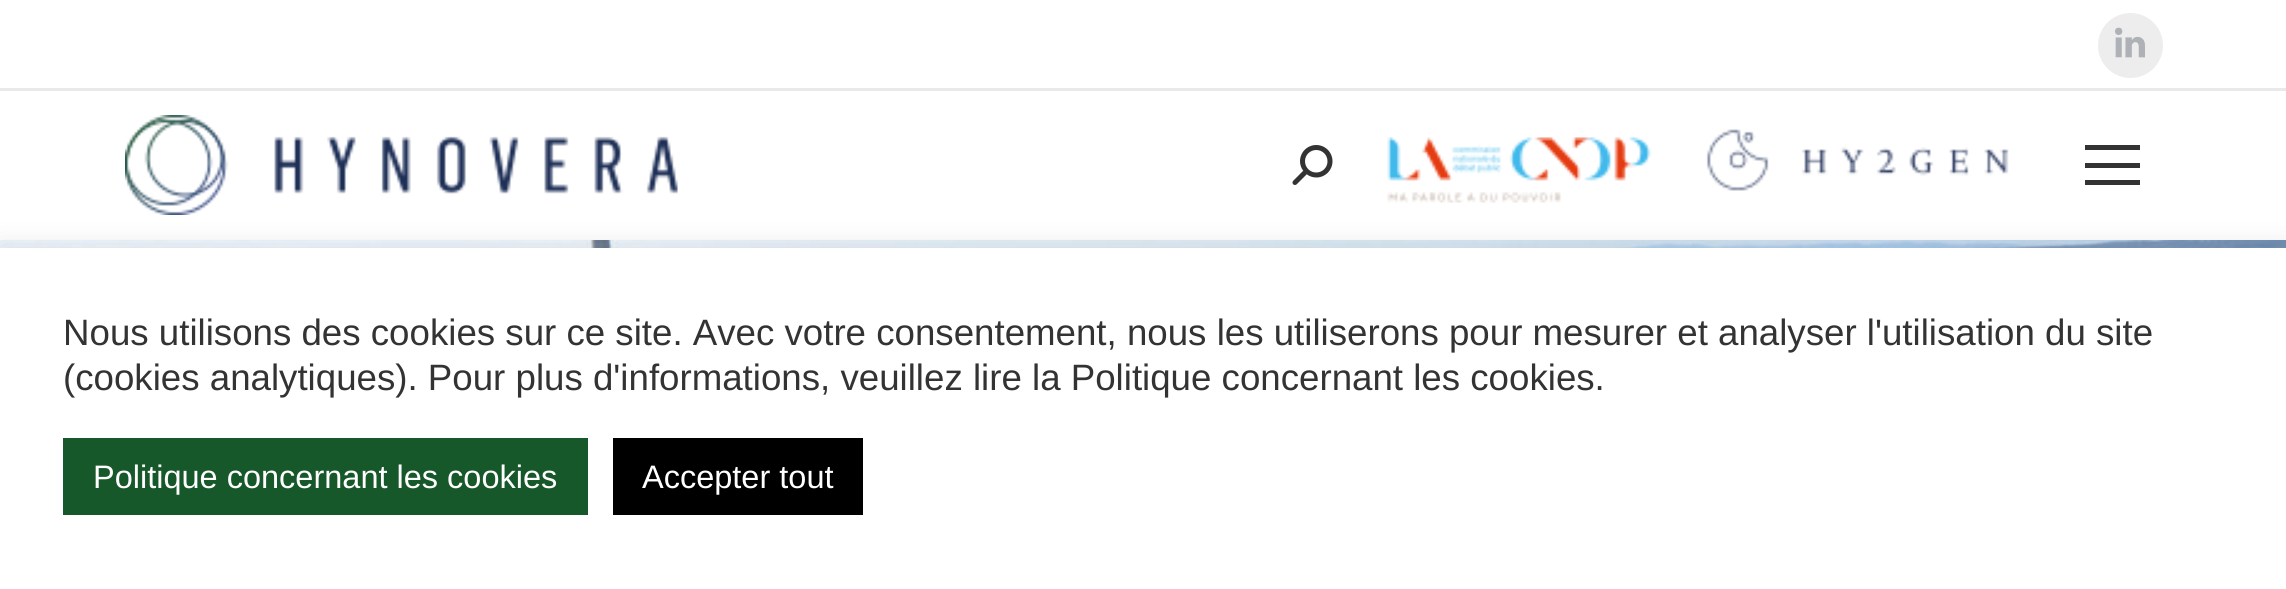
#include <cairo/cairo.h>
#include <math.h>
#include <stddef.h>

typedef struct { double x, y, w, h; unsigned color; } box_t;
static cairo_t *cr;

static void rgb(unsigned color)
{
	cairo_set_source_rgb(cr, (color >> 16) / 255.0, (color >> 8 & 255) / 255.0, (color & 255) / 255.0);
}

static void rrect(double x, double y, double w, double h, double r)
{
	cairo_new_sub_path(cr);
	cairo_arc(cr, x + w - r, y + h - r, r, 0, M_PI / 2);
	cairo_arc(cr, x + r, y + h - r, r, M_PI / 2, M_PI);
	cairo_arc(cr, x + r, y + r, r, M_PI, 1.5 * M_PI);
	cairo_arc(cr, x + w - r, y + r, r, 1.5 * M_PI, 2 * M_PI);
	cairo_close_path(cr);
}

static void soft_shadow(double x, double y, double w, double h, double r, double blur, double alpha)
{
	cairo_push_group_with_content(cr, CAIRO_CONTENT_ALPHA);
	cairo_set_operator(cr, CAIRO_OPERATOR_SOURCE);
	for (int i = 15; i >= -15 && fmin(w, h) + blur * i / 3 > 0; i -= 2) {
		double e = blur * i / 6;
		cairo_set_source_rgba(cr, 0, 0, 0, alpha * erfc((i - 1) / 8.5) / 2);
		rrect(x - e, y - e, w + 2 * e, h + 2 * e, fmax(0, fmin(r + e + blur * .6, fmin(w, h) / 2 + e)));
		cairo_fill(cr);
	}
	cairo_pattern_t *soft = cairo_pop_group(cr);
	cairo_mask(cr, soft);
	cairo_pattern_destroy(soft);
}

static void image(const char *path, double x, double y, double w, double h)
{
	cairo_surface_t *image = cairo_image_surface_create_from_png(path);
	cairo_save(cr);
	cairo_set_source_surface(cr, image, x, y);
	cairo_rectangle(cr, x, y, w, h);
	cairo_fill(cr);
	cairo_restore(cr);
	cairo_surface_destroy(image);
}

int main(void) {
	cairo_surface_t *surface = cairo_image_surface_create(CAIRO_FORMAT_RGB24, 2286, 589);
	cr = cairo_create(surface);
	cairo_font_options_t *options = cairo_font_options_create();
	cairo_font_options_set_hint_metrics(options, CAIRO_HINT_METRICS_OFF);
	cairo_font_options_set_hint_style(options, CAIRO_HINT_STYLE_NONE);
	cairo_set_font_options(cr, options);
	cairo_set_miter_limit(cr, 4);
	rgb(0xffffff);
	cairo_paint(cr);
	rgb(0xededed);
	cairo_arc(cr, 2130.5, 45.5, 32.5, 0, 2 * M_PI);
	cairo_fill(cr);
	image("img/1.png", 2115, 27, 30, 31);
	rgb(0xe9e9e9);
	cairo_rectangle(cr, 0, 88, 2286, 3);
	cairo_fill(cr);
	image("img/2.png", 125, 115, 553, 100);
	image("img/3.png", 1292, 145, 41, 40);
	image("img/4.png", 1387, 137, 264, 66);
	image("img/5.png", 1706, 129, 303, 62);
	{
		static const box_t items[] = {
			{2085, 145, 55, 5, 0x333333},
			{2085, 163, 55, 5, 0x333333},
			{2085, 180, 55, 5, 0x333333},
		};
		for (size_t i = 0; i < sizeof items / sizeof *items; i++) {
			rgb(items[i].color);
			cairo_rectangle(cr, items[i].x, items[i].y, items[i].w, items[i].h);
			cairo_fill(cr);
		}
	}
	image("img/6.png", 0, 240, 2286, 8);
	rgb(0xacabab);
	soft_shadow(0, 245, 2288, 343, 0, 12.5, 0.3);
	{
		static const box_t items[] = {
			{0, 248, 2286, 341, 0xffffff},
			{63, 438, 525, 77, 0x16582a},
			{613, 438, 250, 77, 0x000000},
		};
		for (size_t i = 0; i < sizeof items / sizeof *items; i++) {
			rgb(items[i].color);
			cairo_rectangle(cr, items[i].x, items[i].y, items[i].w, items[i].h);
			cairo_fill(cr);
		}
	}
	cairo_select_font_face(cr, "Liberation Sans", CAIRO_FONT_SLANT_NORMAL, CAIRO_FONT_WEIGHT_NORMAL);
	cairo_set_font_size(cr, 36.67);
	rgb(0x333333);
	cairo_move_to(cr, 63, 345);
	cairo_show_text(cr, "Nous utilisons des cookies sur ce site. Avec votre consentement, nous les utiliserons pour mesurer et analyser l'utilisation du site");
	cairo_move_to(cr, 63, 390);
	cairo_show_text(cr, "(cookies analytiques). Pour plus d'informations, veuillez lire la Politique concernant les cookies.");
	cairo_set_font_size(cr, 32.5);
	rgb(0xffffff);
	cairo_move_to(cr, 93, 488);
	cairo_show_text(cr, "Politique concernant les cookies");
	cairo_move_to(cr, 642, 488);
	cairo_show_text(cr, "Accepter tout");
	cairo_surface_write_to_png(surface, "page.png");
	cairo_font_options_destroy(options);
	cairo_destroy(cr);
	cairo_surface_destroy(surface);
	return 0;
}
